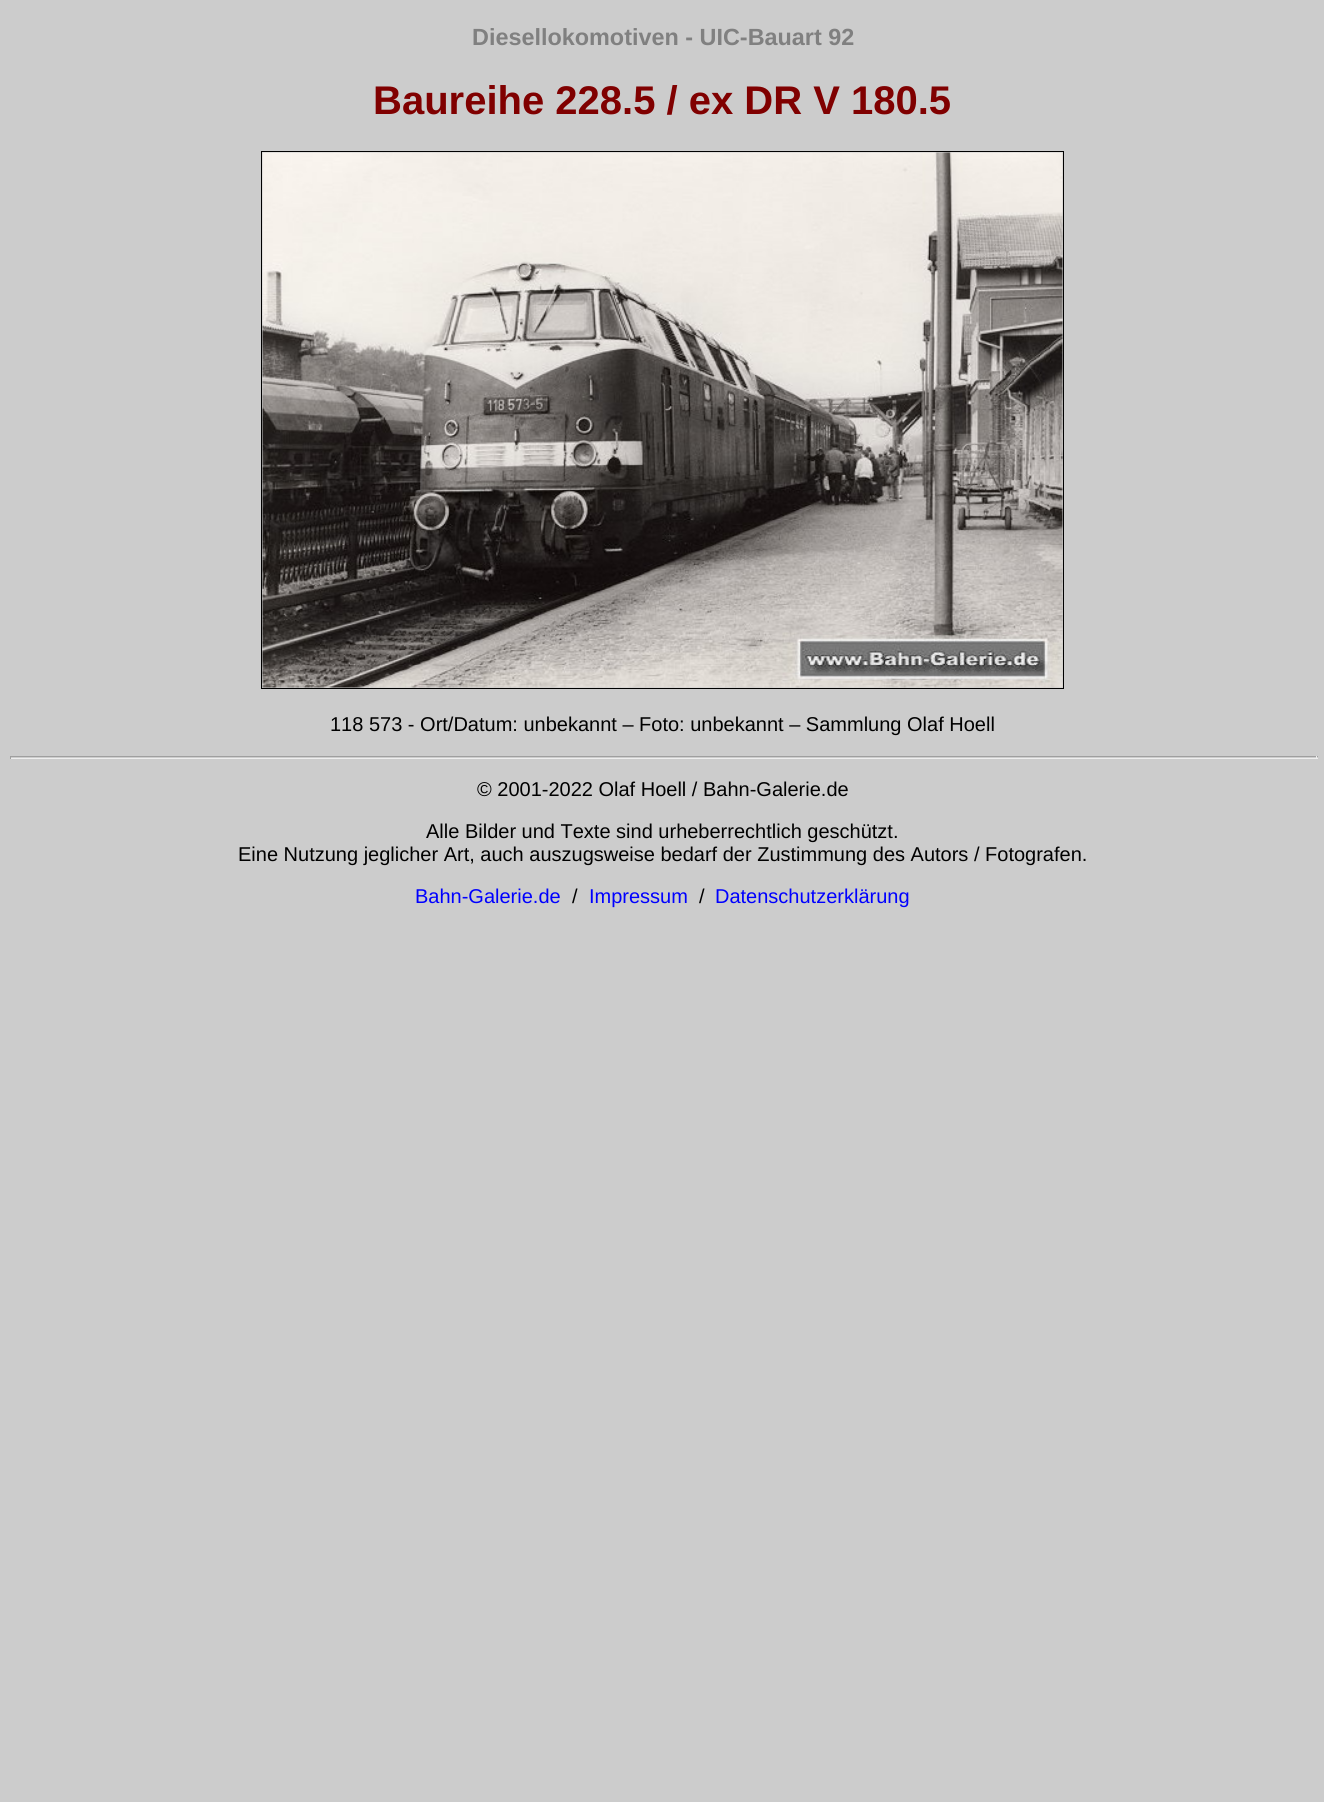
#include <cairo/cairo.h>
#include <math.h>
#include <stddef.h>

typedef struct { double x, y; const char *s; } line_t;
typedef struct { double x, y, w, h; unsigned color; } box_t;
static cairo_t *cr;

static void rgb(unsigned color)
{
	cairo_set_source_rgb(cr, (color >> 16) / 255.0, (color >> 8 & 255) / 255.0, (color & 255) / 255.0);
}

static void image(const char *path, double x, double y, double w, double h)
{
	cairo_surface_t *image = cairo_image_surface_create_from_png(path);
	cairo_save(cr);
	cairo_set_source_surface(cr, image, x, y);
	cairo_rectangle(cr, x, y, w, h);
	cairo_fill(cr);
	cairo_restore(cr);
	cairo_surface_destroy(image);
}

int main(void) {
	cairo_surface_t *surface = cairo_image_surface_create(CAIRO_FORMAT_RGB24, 1324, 1802);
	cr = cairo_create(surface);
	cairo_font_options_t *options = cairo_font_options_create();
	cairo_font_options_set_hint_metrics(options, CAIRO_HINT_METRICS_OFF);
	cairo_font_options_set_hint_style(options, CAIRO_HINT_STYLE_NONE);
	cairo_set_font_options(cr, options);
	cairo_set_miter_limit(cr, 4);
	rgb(0xcccccc);
	cairo_paint(cr);
	cairo_rectangle(cr, 261.5, 151.5, 802, 537);
	rgb(0x000000);
	cairo_set_line_width(cr, 1);
	cairo_stroke(cr);
	image("img/1.png", 262, 152, 801, 536);
	{
		static const box_t items[] = {
			{10, 756, 1308, 1, 0x9f9f9f},
			{1316, 756, 1, 3, 0xeeeeee},
			{10, 758, 1308, 1, 0xeeeeee},
			{10, 756, 1, 3, 0x9f9f9f},
		};
		for (size_t i = 0; i < sizeof items / sizeof *items; i++) {
			rgb(items[i].color);
			cairo_rectangle(cr, items[i].x, items[i].y, items[i].w, items[i].h);
			cairo_fill(cr);
		}
	}
	cairo_select_font_face(cr, "Liberation Sans", CAIRO_FONT_SLANT_NORMAL, CAIRO_FONT_WEIGHT_BOLD);
	cairo_set_font_size(cr, 23.4);
	rgb(0x808080);
	cairo_move_to(cr, 472, 45);
	cairo_show_text(cr, "Diesellokomotiven - UIC-Bauart 92");
	cairo_set_font_size(cr, 40);
	rgb(0x800000);
	cairo_move_to(cr, 373, 114);
	cairo_show_text(cr, "Baureihe 228.5 / ex DR V 180.5");
	cairo_select_font_face(cr, "Liberation Sans", CAIRO_FONT_SLANT_NORMAL, CAIRO_FONT_WEIGHT_NORMAL);
	cairo_set_font_size(cr, 20);
	rgb(0x000000);
	{
		static const line_t items[] = {
			{330, 731, "118 573 - Ort/Datum: unbekannt – Foto: unbekannt – Sammlung Olaf Hoell"},
			{477, 796, "© 2001-2022 Olaf Hoell / Bahn-Galerie.de"},
			{426, 838, "Alle Bilder und Texte sind urheberrechtlich geschützt."},
			{238, 861, "Eine Nutzung jeglicher Art, auch auszugsweise bedarf der Zustimmung des Autors / Fotografen."},
		};
		for (size_t i = 0; i < sizeof items / sizeof *items; i++) {
			cairo_move_to(cr, items[i].x, items[i].y);
			cairo_show_text(cr, items[i].s);
		}
	}
	rgb(0x0000ff);
	cairo_move_to(cr, 415, 903);
	cairo_show_text(cr, "Bahn-Galerie.de");
	rgb(0x000000);
	cairo_move_to(cr, 572, 903);
	cairo_show_text(cr, "/");
	rgb(0x0000ff);
	cairo_move_to(cr, 589, 903);
	cairo_show_text(cr, "Impressum");
	rgb(0x000000);
	cairo_move_to(cr, 699, 903);
	cairo_show_text(cr, "/");
	rgb(0x0000ff);
	cairo_move_to(cr, 715, 903);
	cairo_show_text(cr, "Datenschutzerklärung");
	cairo_surface_write_to_png(surface, "page.png");
	cairo_font_options_destroy(options);
	cairo_destroy(cr);
	cairo_surface_destroy(surface);
	return 0;
}
